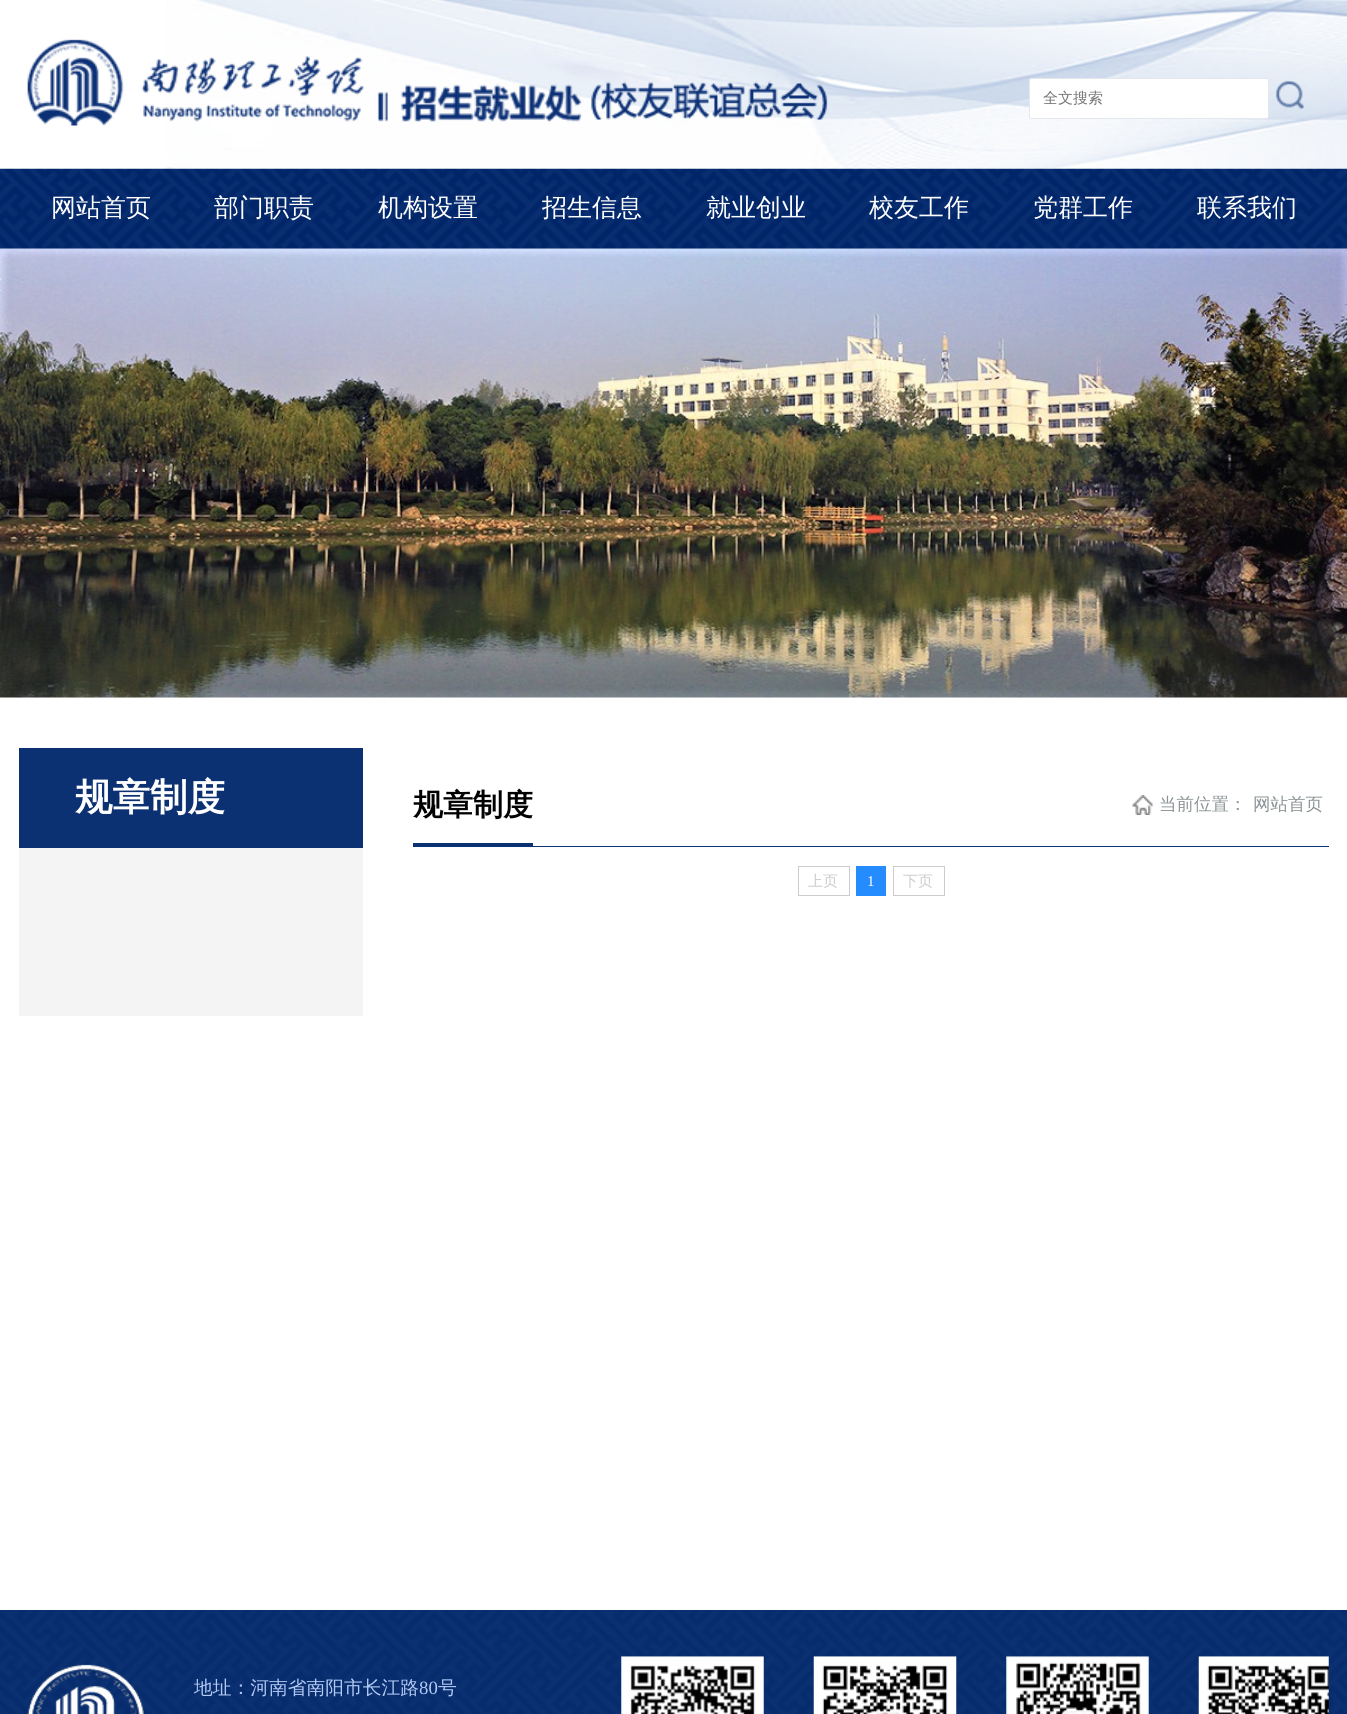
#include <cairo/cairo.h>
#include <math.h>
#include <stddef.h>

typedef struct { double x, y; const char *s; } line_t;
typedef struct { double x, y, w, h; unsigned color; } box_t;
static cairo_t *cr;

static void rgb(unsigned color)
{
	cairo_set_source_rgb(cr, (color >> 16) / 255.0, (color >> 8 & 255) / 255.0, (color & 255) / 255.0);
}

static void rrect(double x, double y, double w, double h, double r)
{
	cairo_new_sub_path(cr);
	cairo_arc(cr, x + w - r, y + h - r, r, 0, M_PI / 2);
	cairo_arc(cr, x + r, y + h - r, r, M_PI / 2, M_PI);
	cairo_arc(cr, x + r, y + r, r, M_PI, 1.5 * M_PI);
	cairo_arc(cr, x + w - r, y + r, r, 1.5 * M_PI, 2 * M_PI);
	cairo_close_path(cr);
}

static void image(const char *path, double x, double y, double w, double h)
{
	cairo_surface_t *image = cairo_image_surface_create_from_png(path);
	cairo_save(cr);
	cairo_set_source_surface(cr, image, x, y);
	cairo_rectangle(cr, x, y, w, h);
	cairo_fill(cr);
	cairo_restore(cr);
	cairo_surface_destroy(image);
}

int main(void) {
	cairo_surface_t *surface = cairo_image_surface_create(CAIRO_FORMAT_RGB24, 1347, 1714);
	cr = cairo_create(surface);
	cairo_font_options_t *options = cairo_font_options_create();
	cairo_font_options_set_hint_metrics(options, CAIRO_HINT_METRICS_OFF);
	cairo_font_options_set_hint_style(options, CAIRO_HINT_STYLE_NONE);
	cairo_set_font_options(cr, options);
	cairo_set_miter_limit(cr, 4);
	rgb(0xffffff);
	cairo_paint(cr);
	image("img/1.png", 166, 0, 1181, 169);
	image("img/2.png", 27, 39, 801, 87);
	rgb(0xffffff);
	rrect(1029.5, 78.5, 239, 40, 2);
	cairo_fill_preserve(cr);
	rgb(0xe4e7ed);
	cairo_set_line_width(cr, 1);
	cairo_stroke(cr);
	image("img/3.png", 1276, 81, 28, 28);
	image("img/4.png", 0, 168, 1347, 81);
	image("img/5.png", 0, 248, 1347, 450);
	{
		static const box_t items[] = {
			{19, 748, 344, 100, 0x0c3173},
			{19, 848, 344, 168, 0xf4f4f4},
			{533, 846, 796, 1, 0x0c3173},
			{413, 843, 120, 4, 0x0c3173},
		};
		for (size_t i = 0; i < sizeof items / sizeof *items; i++) {
			rgb(items[i].color);
			cairo_rectangle(cr, items[i].x, items[i].y, items[i].w, items[i].h);
			cairo_fill(cr);
		}
	}
	image("img/6.png", 1132, 795, 21, 20);
	cairo_rectangle(cr, 798.5, 866.5, 51, 29);
	rgb(0xcccccc);
	cairo_stroke(cr);
	rgb(0x258cff);
	cairo_rectangle(cr, 856, 866, 30, 30);
	cairo_fill(cr);
	cairo_rectangle(cr, 893.5, 866.5, 51, 29);
	rgb(0xcccccc);
	cairo_stroke(cr);
	image("img/7.png", 0, 1610, 1347, 104);
	image("img/8.png", 27, 1664, 117, 50);
	image("img/9.png", 621, 1656, 143, 58);
	image("img/10.png", 813, 1656, 144, 58);
	image("img/11.png", 1006, 1656, 143, 58);
	image("img/12.png", 1198, 1656, 131, 58);
	cairo_select_font_face(cr, "WenQuanYi Zen Hei Medium", CAIRO_FONT_SLANT_NORMAL, CAIRO_FONT_WEIGHT_NORMAL);
	cairo_set_font_size(cr, 15);
	rgb(0x757575);
	cairo_move_to(cr, 1043, 103);
	cairo_show_text(cr, "全文搜索");
	cairo_set_font_size(cr, 25);
	rgb(0xffffff);
	{
		static const line_t items[] = {
			{51, 216, "网站首页"},
			{214, 216, "部门职责"},
			{378, 216, "机构设置"},
			{542, 216, "招生信息"},
			{706, 216, "就业创业"},
			{869, 216, "校友工作"},
			{1033, 216, "党群工作"},
			{1197, 216, "联系我们"},
		};
		for (size_t i = 0; i < sizeof items / sizeof *items; i++) {
			cairo_move_to(cr, items[i].x, items[i].y);
			cairo_show_text(cr, items[i].s);
		}
	}
	cairo_select_font_face(cr, "WenQuanYi Zen Hei", CAIRO_FONT_SLANT_NORMAL, CAIRO_FONT_WEIGHT_BOLD);
	cairo_set_font_size(cr, 37.5);
	cairo_move_to(cr, 75, 810);
	cairo_show_text(cr, "规章制度");
	cairo_set_font_size(cr, 30);
	rgb(0x000000);
	cairo_move_to(cr, 413, 815);
	cairo_show_text(cr, "规章制度");
	cairo_select_font_face(cr, "WenQuanYi Zen Hei Medium", CAIRO_FONT_SLANT_NORMAL, CAIRO_FONT_WEIGHT_NORMAL);
	cairo_set_font_size(cr, 17.5);
	rgb(0x8c9396);
	cairo_move_to(cr, 1159, 810);
	cairo_show_text(cr, "当前位置：");
	cairo_move_to(cr, 1253, 810);
	cairo_show_text(cr, "网站首页");
	cairo_set_font_size(cr, 15);
	rgb(0xcccccc);
	cairo_move_to(cr, 808, 886);
	cairo_show_text(cr, "上页");
	cairo_select_font_face(cr, "Liberation Serif", CAIRO_FONT_SLANT_NORMAL, CAIRO_FONT_WEIGHT_NORMAL);
	rgb(0xffffff);
	cairo_move_to(cr, 867, 886);
	cairo_show_text(cr, "1");
	cairo_select_font_face(cr, "WenQuanYi Zen Hei Medium", CAIRO_FONT_SLANT_NORMAL, CAIRO_FONT_WEIGHT_NORMAL);
	rgb(0xcccccc);
	cairo_move_to(cr, 903, 886);
	cairo_show_text(cr, "下页");
	cairo_set_font_size(cr, 18.75);
	rgb(0xb3caf4);
	cairo_move_to(cr, 194, 1694);
	cairo_show_text(cr, "地址：河南省南阳市长江路");
	cairo_select_font_face(cr, "Liberation Serif", CAIRO_FONT_SLANT_NORMAL, CAIRO_FONT_WEIGHT_NORMAL);
	cairo_move_to(cr, 419, 1694);
	cairo_show_text(cr, "80");
	cairo_select_font_face(cr, "WenQuanYi Zen Hei Medium", CAIRO_FONT_SLANT_NORMAL, CAIRO_FONT_WEIGHT_NORMAL);
	cairo_move_to(cr, 438, 1694);
	cairo_show_text(cr, "号");
	cairo_surface_write_to_png(surface, "page.png");
	cairo_font_options_destroy(options);
	cairo_destroy(cr);
	cairo_surface_destroy(surface);
	return 0;
}
